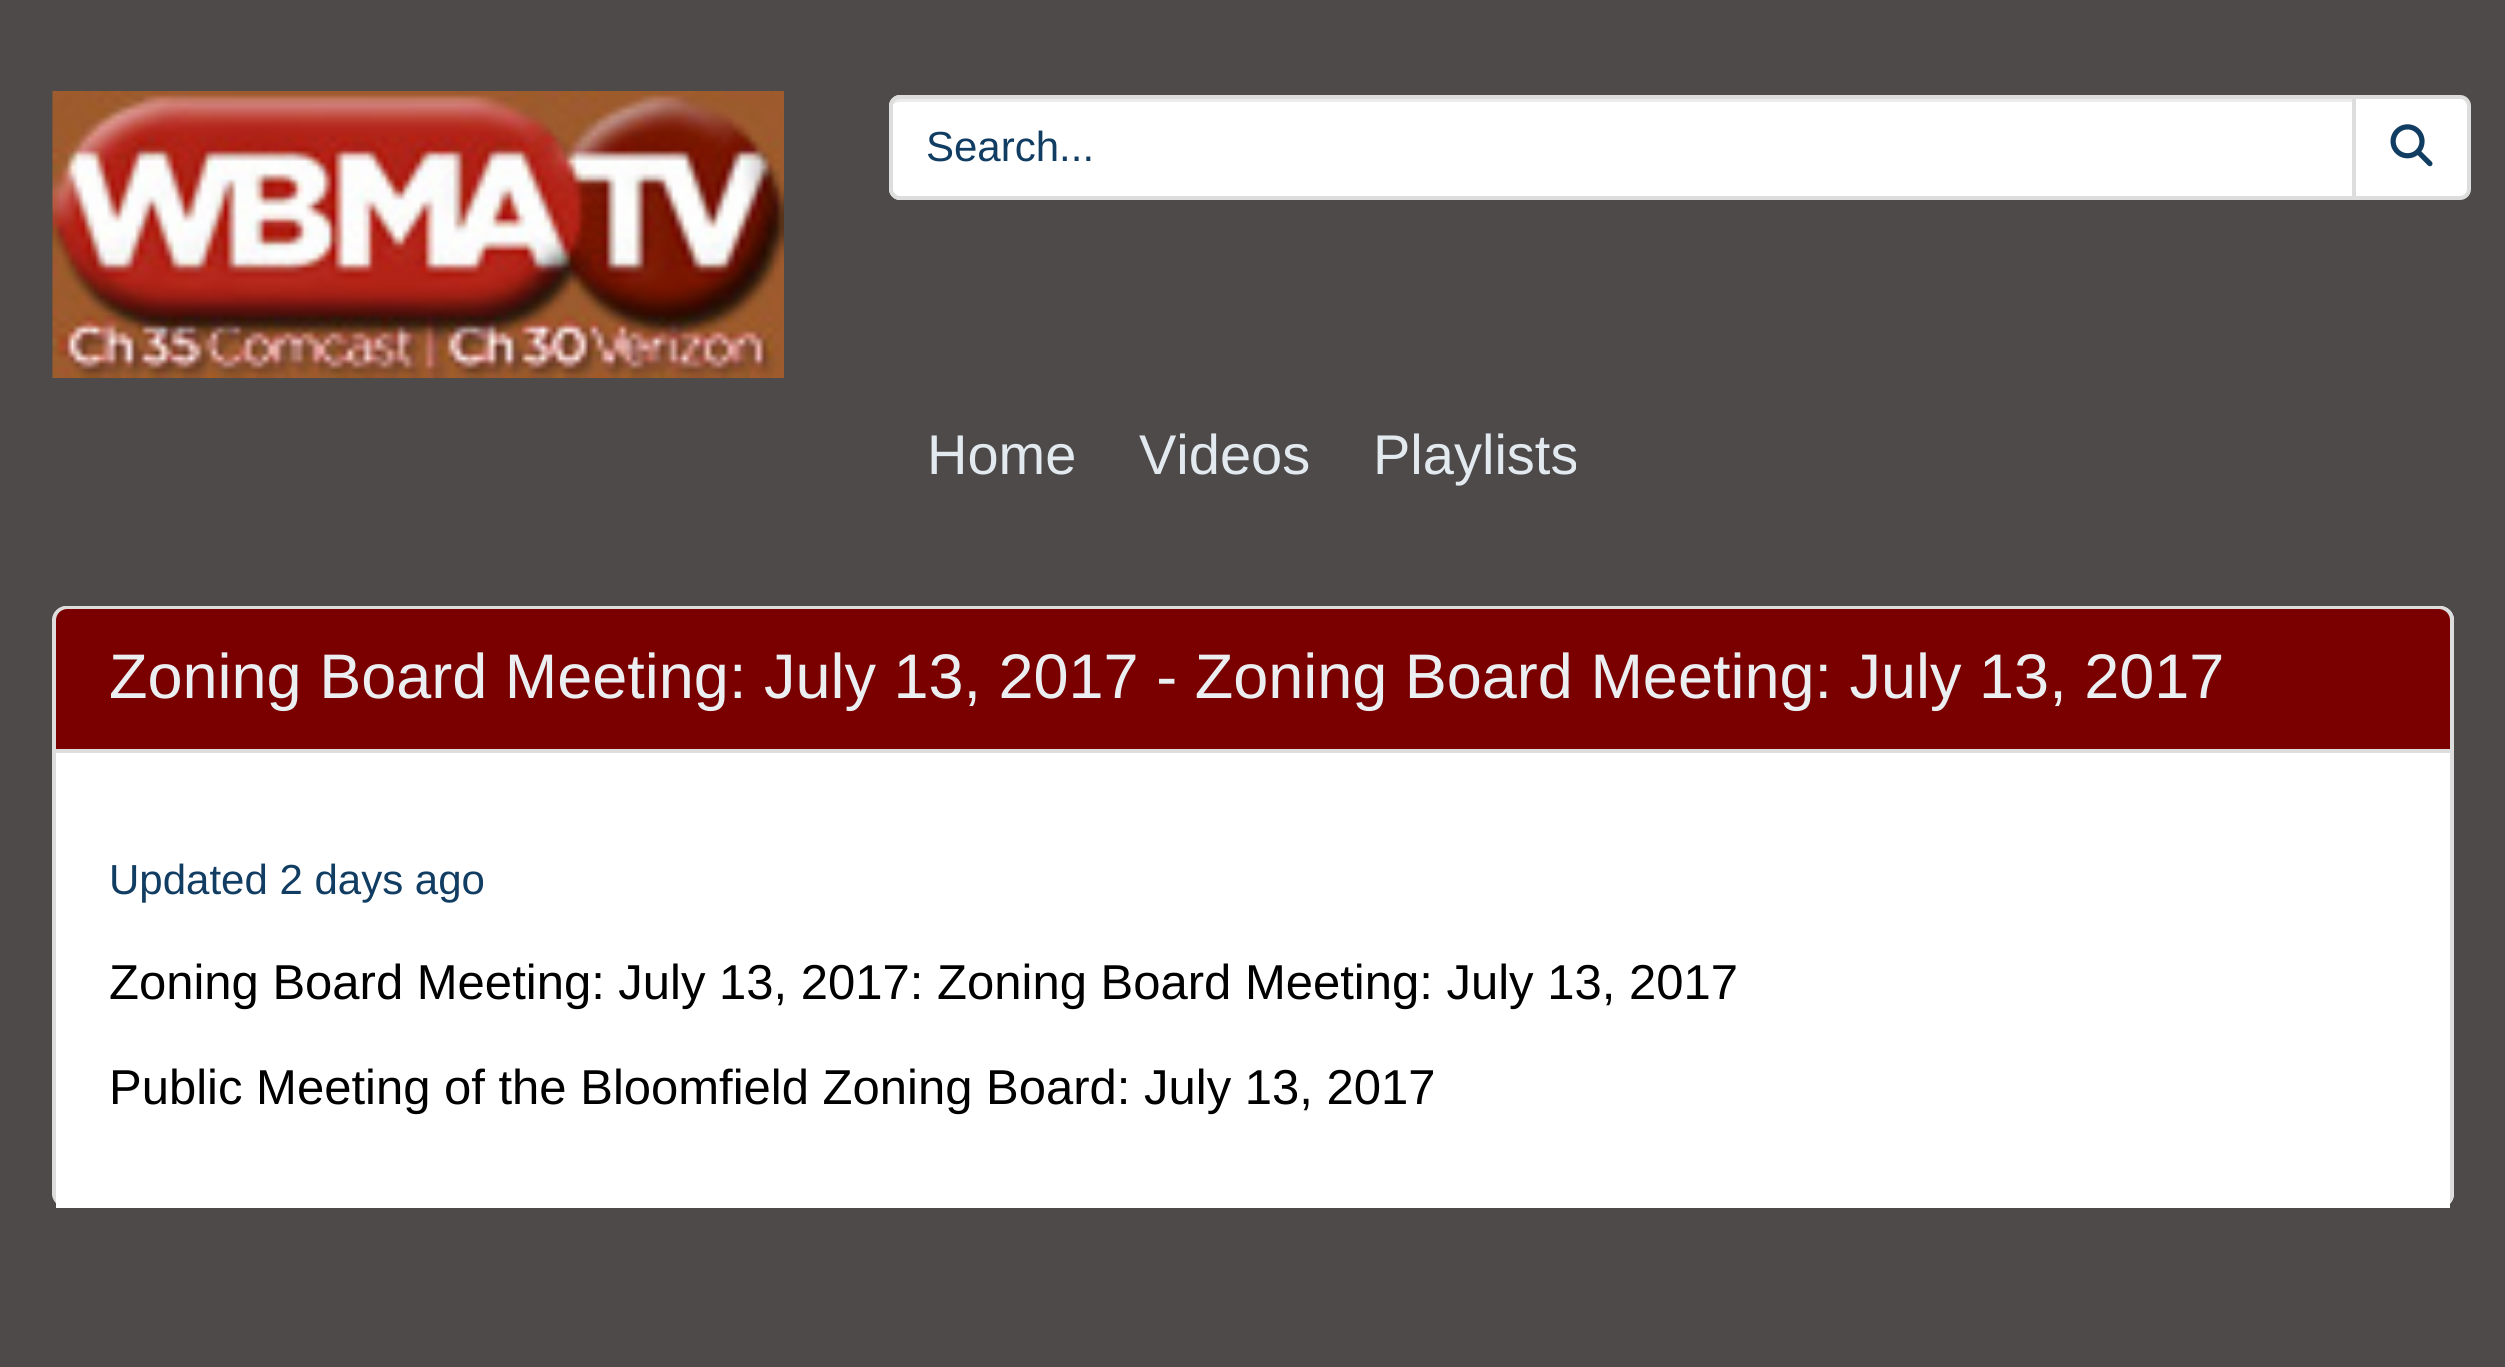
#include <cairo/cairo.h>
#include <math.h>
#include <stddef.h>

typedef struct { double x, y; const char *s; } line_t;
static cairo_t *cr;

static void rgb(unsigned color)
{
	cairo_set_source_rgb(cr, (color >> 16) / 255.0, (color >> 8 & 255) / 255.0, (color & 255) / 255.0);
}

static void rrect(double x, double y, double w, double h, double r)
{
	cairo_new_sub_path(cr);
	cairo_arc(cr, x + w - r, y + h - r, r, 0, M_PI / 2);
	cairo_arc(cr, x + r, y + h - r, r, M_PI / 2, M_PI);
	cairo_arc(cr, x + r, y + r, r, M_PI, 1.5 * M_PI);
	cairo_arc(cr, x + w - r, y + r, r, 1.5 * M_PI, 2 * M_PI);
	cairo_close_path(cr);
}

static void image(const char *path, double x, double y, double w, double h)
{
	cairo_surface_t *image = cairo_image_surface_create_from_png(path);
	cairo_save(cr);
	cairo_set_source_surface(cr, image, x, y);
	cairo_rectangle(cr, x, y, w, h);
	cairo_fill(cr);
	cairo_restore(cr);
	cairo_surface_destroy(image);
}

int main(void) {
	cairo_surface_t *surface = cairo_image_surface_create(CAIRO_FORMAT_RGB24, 2505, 1367);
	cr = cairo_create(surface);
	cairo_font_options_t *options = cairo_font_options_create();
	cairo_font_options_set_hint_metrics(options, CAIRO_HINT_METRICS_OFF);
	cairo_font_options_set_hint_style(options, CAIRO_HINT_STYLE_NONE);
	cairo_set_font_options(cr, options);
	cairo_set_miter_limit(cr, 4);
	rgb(0x4f4a4a);
	cairo_paint(cr);
	image("img/1.png", 52, 91, 732, 287);
	rgb(0xffffff);
	cairo_new_path(cr);
	cairo_move_to(cr, 900, 95);
	cairo_line_to(cr, 2356, 95);
	cairo_line_to(cr, 2356, 200);
	cairo_line_to(cr, 900, 200);
	cairo_curve_to(cr, 894, 200, 889, 195, 889, 189);
	cairo_line_to(cr, 889, 106);
	cairo_curve_to(cr, 889, 100, 894, 95, 900, 95);
	cairo_close_path(cr);
	cairo_fill(cr);
	rgb(0xececec);
	cairo_new_path(cr);
	cairo_move_to(cr, 900, 102);
	cairo_line_to(cr, 2352, 102);
	cairo_line_to(cr, 2352, 98);
	cairo_line_to(cr, 900, 98);
	cairo_curve_to(cr, 896, 98, 893, 101, 893, 105);
	cairo_curve_to(cr, 894, 103, 897, 102, 900, 102);
	cairo_close_path(cr);
	cairo_fill(cr);
	cairo_new_path(cr);
	cairo_move_to(cr, 900, 97);
	cairo_line_to(cr, 2354, 97);
	cairo_line_to(cr, 2354, 198);
	cairo_line_to(cr, 900, 198);
	cairo_curve_to(cr, 895, 198, 891, 194, 891, 189);
	cairo_line_to(cr, 891, 106);
	cairo_curve_to(cr, 891, 101, 895, 97, 900, 97);
	cairo_close_path(cr);
	rgb(0xdddddd);
	cairo_set_line_width(cr, 4);
	cairo_stroke(cr);
	rgb(0xffffff);
	cairo_new_path(cr);
	cairo_move_to(cr, 2354, 97);
	cairo_line_to(cr, 2460, 97);
	cairo_curve_to(cr, 2465, 97, 2469, 101, 2469, 106);
	cairo_line_to(cr, 2469, 189);
	cairo_curve_to(cr, 2469, 194, 2465, 198, 2460, 198);
	cairo_line_to(cr, 2354, 198);
	cairo_close_path(cr);
	cairo_fill_preserve(cr);
	rgb(0xdddddd);
	cairo_stroke(cr);
	image("img/2.png", 2390, 124, 43, 43);
	rgb(0xffffff);
	rrect(53, 606, 2401, 602, 14);
	cairo_fill(cr);
	rgb(0xdddddd);
	cairo_set_fill_rule(cr, CAIRO_FILL_RULE_EVEN_ODD);
	cairo_new_path(cr);
	cairo_move_to(cr, 66, 606);
	cairo_line_to(cr, 2440, 606);
	cairo_curve_to(cr, 2447, 606, 2454, 612, 2454, 620);
	cairo_line_to(cr, 2454, 1194);
	cairo_curve_to(cr, 2454, 1201, 2447, 1208, 2440, 1208);
	cairo_line_to(cr, 66, 1208);
	cairo_curve_to(cr, 59, 1208, 52, 1201, 52, 1194);
	cairo_line_to(cr, 52, 620);
	cairo_curve_to(cr, 52, 612, 59, 606, 66, 606);
	cairo_close_path(cr);
	cairo_move_to(cr, 66, 609);
	cairo_line_to(cr, 2440, 609);
	cairo_curve_to(cr, 2445, 609, 2450, 614, 2450, 620);
	cairo_line_to(cr, 2450, 1194);
	cairo_curve_to(cr, 2450, 1201, 2445, 1208, 2440, 1208);
	cairo_line_to(cr, 66, 1208);
	cairo_curve_to(cr, 61, 1208, 56, 1201, 56, 1194);
	cairo_line_to(cr, 56, 620);
	cairo_curve_to(cr, 56, 614, 61, 609, 66, 609);
	cairo_close_path(cr);
	cairo_fill(cr);
	rgb(0x7a0000);
	cairo_new_path(cr);
	cairo_move_to(cr, 67, 609);
	cairo_line_to(cr, 2439, 609);
	cairo_curve_to(cr, 2445, 609, 2450, 614, 2450, 620);
	cairo_line_to(cr, 2450, 753);
	cairo_line_to(cr, 56, 753);
	cairo_line_to(cr, 56, 620);
	cairo_curve_to(cr, 56, 614, 61, 609, 67, 609);
	cairo_close_path(cr);
	cairo_fill(cr);
	rgb(0xdddddd);
	cairo_rectangle(cr, 56, 749, 2394, 4);
	cairo_fill(cr);
	rgb(0xffffff);
	cairo_rectangle(cr, 56, 1195, 2394, 13);
	cairo_fill(cr);
	cairo_select_font_face(cr, "Liberation Sans", CAIRO_FONT_SLANT_NORMAL, CAIRO_FONT_WEIGHT_NORMAL);
	cairo_set_font_size(cr, 42);
	rgb(0x123d62);
	cairo_move_to(cr, 926, 161);
	cairo_show_text(cr, "Search...");
	cairo_set_font_size(cr, 56);
	rgb(0xe2eaf0);
	{
		static const line_t items[] = {
			{927, 474, "Home"},
			{1139, 474, "Videos"},
			{1373, 474, "Playlists"},
		};
		for (size_t i = 0; i < sizeof items / sizeof *items; i++) {
			cairo_move_to(cr, items[i].x, items[i].y);
			cairo_show_text(cr, items[i].s);
		}
	}
	cairo_set_font_size(cr, 63);
	rgb(0xebeff2);
	cairo_move_to(cr, 109, 698);
	cairo_show_text(cr, "Zoning Board Meeting: July 13, 2017 - Zoning Board Meeting: July 13, 2017");
	cairo_set_font_size(cr, 42);
	rgb(0x123d62);
	cairo_move_to(cr, 109, 894);
	cairo_show_text(cr, "Updated 2 days ago");
	cairo_set_font_size(cr, 49);
	rgb(0x000000);
	cairo_move_to(cr, 109, 999);
	cairo_show_text(cr, "Zoning Board Meeting: July 13, 2017: Zoning Board Meeting: July 13, 2017");
	cairo_move_to(cr, 109, 1104);
	cairo_show_text(cr, "Public Meeting of the Bloomfield Zoning Board: July 13, 2017");
	cairo_surface_write_to_png(surface, "page.png");
	cairo_font_options_destroy(options);
	cairo_destroy(cr);
	cairo_surface_destroy(surface);
	return 0;
}
